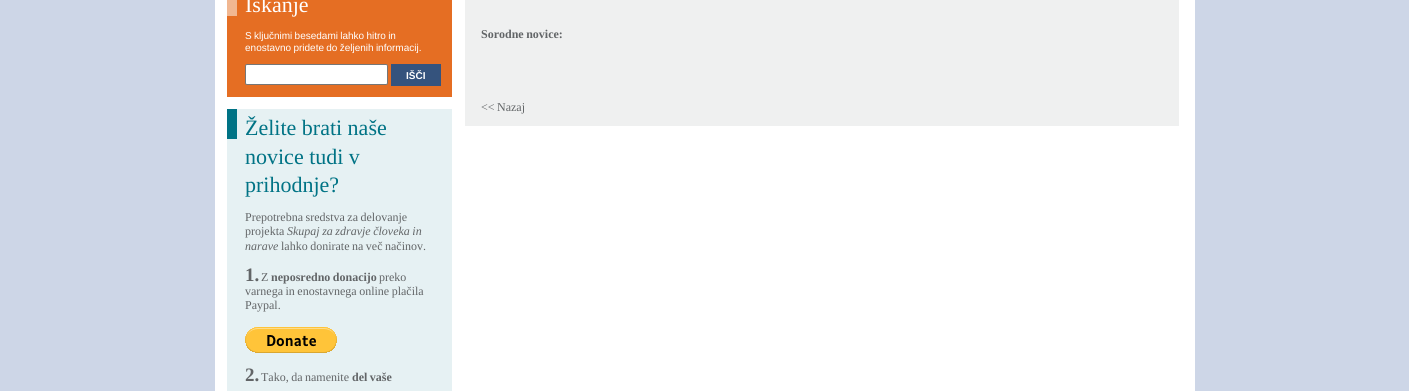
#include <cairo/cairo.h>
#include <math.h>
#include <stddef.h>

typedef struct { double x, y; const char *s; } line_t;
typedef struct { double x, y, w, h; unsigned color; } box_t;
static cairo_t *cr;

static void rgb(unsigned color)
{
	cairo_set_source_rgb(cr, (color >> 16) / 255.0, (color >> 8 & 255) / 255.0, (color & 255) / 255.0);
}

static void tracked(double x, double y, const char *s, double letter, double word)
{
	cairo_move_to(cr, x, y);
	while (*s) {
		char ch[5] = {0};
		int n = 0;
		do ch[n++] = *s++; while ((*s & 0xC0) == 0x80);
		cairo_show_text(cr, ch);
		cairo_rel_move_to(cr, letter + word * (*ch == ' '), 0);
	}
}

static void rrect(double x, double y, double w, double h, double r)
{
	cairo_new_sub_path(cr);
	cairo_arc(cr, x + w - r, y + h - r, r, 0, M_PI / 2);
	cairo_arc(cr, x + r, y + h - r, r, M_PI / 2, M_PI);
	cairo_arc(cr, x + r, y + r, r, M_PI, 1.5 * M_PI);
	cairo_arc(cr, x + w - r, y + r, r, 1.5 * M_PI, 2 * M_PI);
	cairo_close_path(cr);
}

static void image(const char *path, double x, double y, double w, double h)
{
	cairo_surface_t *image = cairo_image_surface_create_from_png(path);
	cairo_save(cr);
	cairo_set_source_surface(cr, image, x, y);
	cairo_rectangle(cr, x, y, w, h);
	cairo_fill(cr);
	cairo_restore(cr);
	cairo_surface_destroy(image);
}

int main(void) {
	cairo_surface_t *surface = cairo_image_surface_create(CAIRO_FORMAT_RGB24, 1409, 391);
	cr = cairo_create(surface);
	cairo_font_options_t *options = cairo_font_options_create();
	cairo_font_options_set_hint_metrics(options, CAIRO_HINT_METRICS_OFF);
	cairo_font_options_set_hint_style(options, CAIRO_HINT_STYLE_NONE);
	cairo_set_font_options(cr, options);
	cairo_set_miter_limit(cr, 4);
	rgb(0xcdd6e7);
	cairo_paint(cr);
	{
		static const box_t items[] = {
			{215, 0, 980, 391, 0xffffff},
			{227, 0, 225, 97, 0xe56e23},
			{227, 0, 10, 16, 0xf1b791},
		};
		for (size_t i = 0; i < sizeof items / sizeof *items; i++) {
			rgb(items[i].color);
			cairo_rectangle(cr, items[i].x, items[i].y, items[i].w, items[i].h);
			cairo_fill(cr);
		}
	}
	rgb(0xffffff);
	rrect(245.5, 64.5, 142, 20, 1.5);
	cairo_fill_preserve(cr);
	rgb(0x767676);
	cairo_set_line_width(cr, 1);
	cairo_stroke(cr);
	{
		static const box_t items[] = {
			{391, 64, 50, 22, 0x35537d},
			{227, 109, 225, 282, 0xe6f1f3},
			{227, 109, 10, 30, 0x007385},
		};
		for (size_t i = 0; i < sizeof items / sizeof *items; i++) {
			rgb(items[i].color);
			cairo_rectangle(cr, items[i].x, items[i].y, items[i].w, items[i].h);
			cairo_fill(cr);
		}
	}
	image("img/1.png", 245, 327, 92, 26);
	rgb(0xeff0f0);
	cairo_rectangle(cr, 465, 0, 714, 126);
	cairo_fill(cr);
	cairo_select_font_face(cr, "Liberation Serif", CAIRO_FONT_SLANT_NORMAL, CAIRO_FONT_WEIGHT_NORMAL);
	cairo_set_font_size(cr, 22);
	rgb(0xffffff);
	cairo_move_to(cr, 245, 12);
	cairo_show_text(cr, "Iskanje");
	cairo_select_font_face(cr, "Liberation Sans", CAIRO_FONT_SLANT_NORMAL, CAIRO_FONT_WEIGHT_NORMAL);
	cairo_set_font_size(cr, 10);
	tracked(245, 39, "S ključnimi besedami lahko hitro in", 0, -0.5);
	tracked(245, 51, "enostavno pridete do željenih informacij.", 0, -0.5);
	cairo_select_font_face(cr, "Liberation Sans", CAIRO_FONT_SLANT_NORMAL, CAIRO_FONT_WEIGHT_BOLD);
	cairo_move_to(cr, 406, 79);
	cairo_show_text(cr, "IŠČI");
	cairo_select_font_face(cr, "Liberation Serif", CAIRO_FONT_SLANT_NORMAL, CAIRO_FONT_WEIGHT_NORMAL);
	cairo_set_font_size(cr, 22);
	rgb(0x007385);
	{
		static const line_t items[] = {
			{245, 135, "Želite brati naše"},
			{245, 164, "novice tudi v"},
			{245, 192, "prihodnje?"},
		};
		for (size_t i = 0; i < sizeof items / sizeof *items; i++) {
			cairo_move_to(cr, items[i].x, items[i].y);
			cairo_show_text(cr, items[i].s);
		}
	}
	cairo_set_font_size(cr, 12);
	rgb(0x626567);
	tracked(245, 221, "Prepotrebna sredstva za delovanje", 0, -0.5);
	cairo_move_to(cr, 245, 235);
	cairo_show_text(cr, "projekta");
	cairo_select_font_face(cr, "Liberation Serif", CAIRO_FONT_SLANT_ITALIC, CAIRO_FONT_WEIGHT_NORMAL);
	tracked(287, 235, "Skupaj za zdravje človeka in", 0, -0.5);
	cairo_move_to(cr, 245, 250);
	cairo_show_text(cr, "narave");
	cairo_select_font_face(cr, "Liberation Serif", CAIRO_FONT_SLANT_NORMAL, CAIRO_FONT_WEIGHT_NORMAL);
	tracked(281, 250, "lahko donirate na več načinov.", 0, -0.5);
	cairo_select_font_face(cr, "Liberation Serif", CAIRO_FONT_SLANT_NORMAL, CAIRO_FONT_WEIGHT_BOLD);
	cairo_set_font_size(cr, 19);
	cairo_move_to(cr, 245, 281);
	cairo_show_text(cr, "1.");
	cairo_select_font_face(cr, "Liberation Serif", CAIRO_FONT_SLANT_NORMAL, CAIRO_FONT_WEIGHT_NORMAL);
	cairo_set_font_size(cr, 12);
	cairo_move_to(cr, 261, 281);
	cairo_show_text(cr, "Z");
	cairo_select_font_face(cr, "Liberation Serif", CAIRO_FONT_SLANT_NORMAL, CAIRO_FONT_WEIGHT_BOLD);
	tracked(271, 281, "neposredno donacijo", 0, -0.5);
	cairo_select_font_face(cr, "Liberation Serif", CAIRO_FONT_SLANT_NORMAL, CAIRO_FONT_WEIGHT_NORMAL);
	cairo_move_to(cr, 379, 281);
	cairo_show_text(cr, "preko");
	tracked(245, 295, "varnega in enostavnega online plačila", 0, -0.5);
	cairo_move_to(cr, 245, 309);
	cairo_show_text(cr, "Paypal.");
	cairo_select_font_face(cr, "Liberation Serif", CAIRO_FONT_SLANT_NORMAL, CAIRO_FONT_WEIGHT_BOLD);
	cairo_set_font_size(cr, 19);
	cairo_move_to(cr, 245, 381);
	cairo_show_text(cr, "2.");
	cairo_select_font_face(cr, "Liberation Serif", CAIRO_FONT_SLANT_NORMAL, CAIRO_FONT_WEIGHT_NORMAL);
	cairo_set_font_size(cr, 12);
	tracked(261, 381, "Tako, da namenite", 0, -0.5);
	cairo_select_font_face(cr, "Liberation Serif", CAIRO_FONT_SLANT_NORMAL, CAIRO_FONT_WEIGHT_BOLD);
	tracked(352, 381, "del vaše", 0, -0.5);
	tracked(481, 38, "Sorodne novice:", 0, -0.5);
	cairo_select_font_face(cr, "Liberation Serif", CAIRO_FONT_SLANT_NORMAL, CAIRO_FONT_WEIGHT_NORMAL);
	tracked(481, 111, "<< Nazaj", 0, -0.5);
	cairo_surface_write_to_png(surface, "page.png");
	cairo_font_options_destroy(options);
	cairo_destroy(cr);
	cairo_surface_destroy(surface);
	return 0;
}
